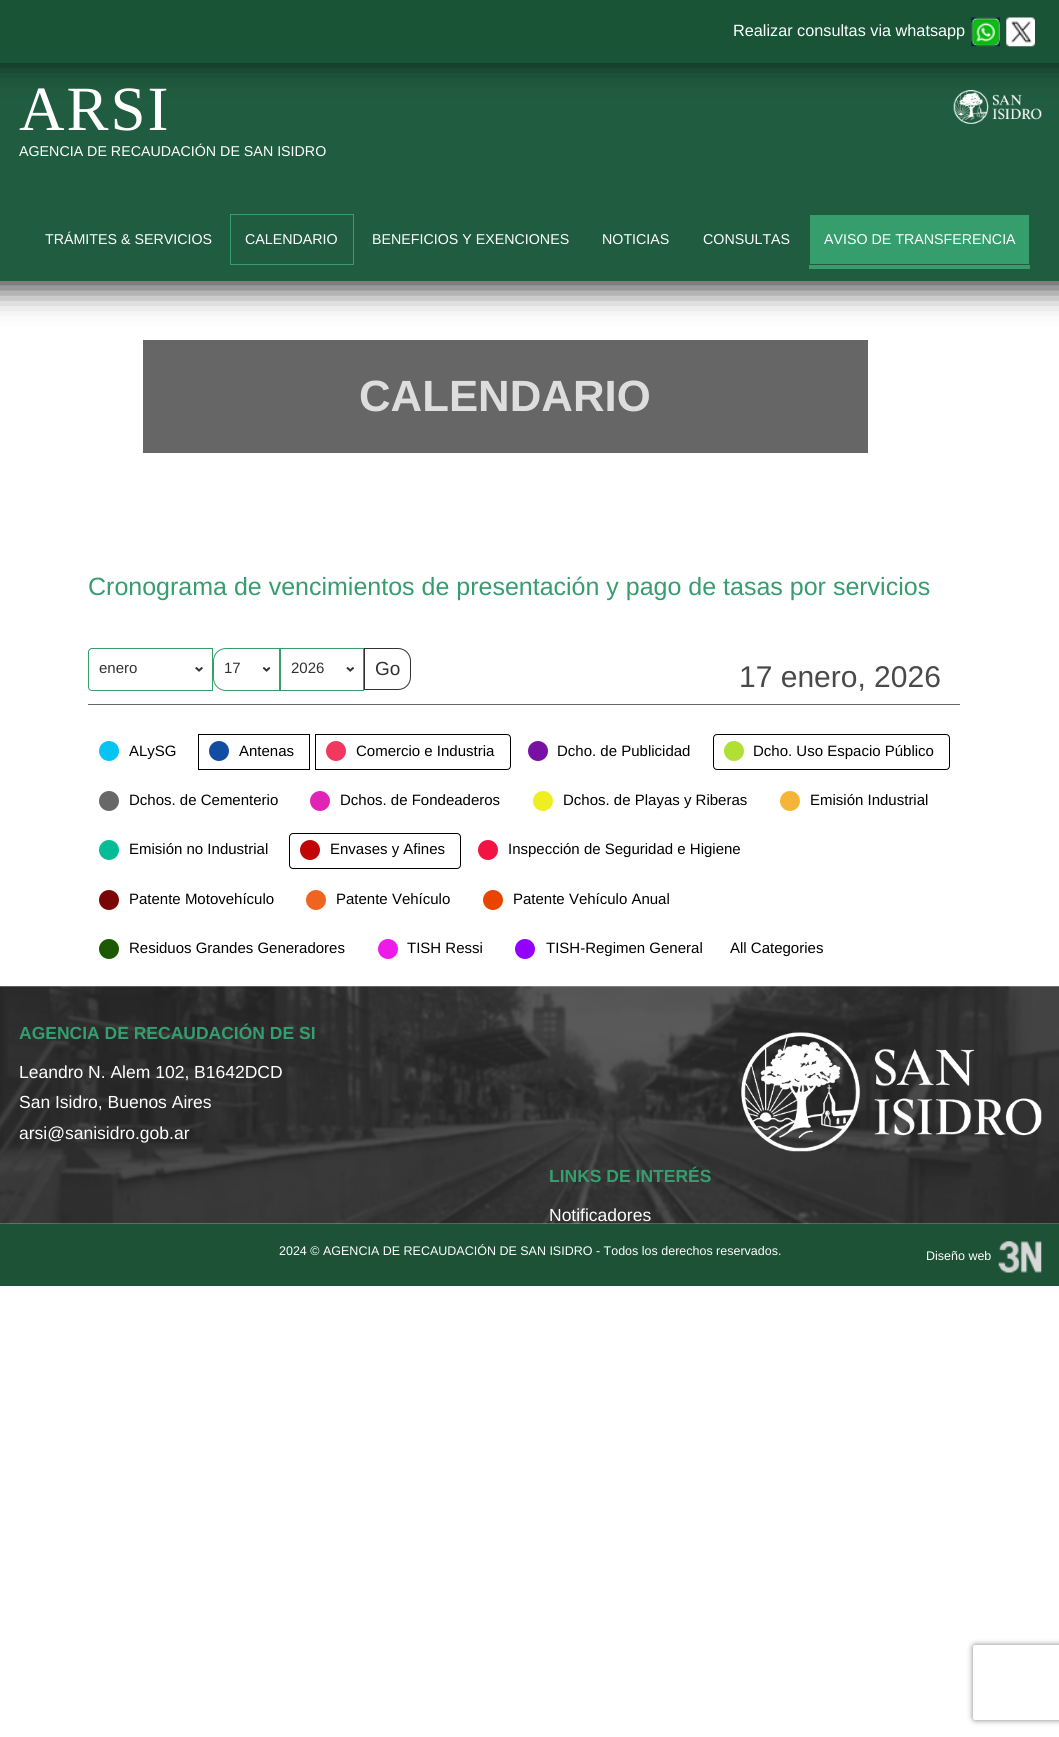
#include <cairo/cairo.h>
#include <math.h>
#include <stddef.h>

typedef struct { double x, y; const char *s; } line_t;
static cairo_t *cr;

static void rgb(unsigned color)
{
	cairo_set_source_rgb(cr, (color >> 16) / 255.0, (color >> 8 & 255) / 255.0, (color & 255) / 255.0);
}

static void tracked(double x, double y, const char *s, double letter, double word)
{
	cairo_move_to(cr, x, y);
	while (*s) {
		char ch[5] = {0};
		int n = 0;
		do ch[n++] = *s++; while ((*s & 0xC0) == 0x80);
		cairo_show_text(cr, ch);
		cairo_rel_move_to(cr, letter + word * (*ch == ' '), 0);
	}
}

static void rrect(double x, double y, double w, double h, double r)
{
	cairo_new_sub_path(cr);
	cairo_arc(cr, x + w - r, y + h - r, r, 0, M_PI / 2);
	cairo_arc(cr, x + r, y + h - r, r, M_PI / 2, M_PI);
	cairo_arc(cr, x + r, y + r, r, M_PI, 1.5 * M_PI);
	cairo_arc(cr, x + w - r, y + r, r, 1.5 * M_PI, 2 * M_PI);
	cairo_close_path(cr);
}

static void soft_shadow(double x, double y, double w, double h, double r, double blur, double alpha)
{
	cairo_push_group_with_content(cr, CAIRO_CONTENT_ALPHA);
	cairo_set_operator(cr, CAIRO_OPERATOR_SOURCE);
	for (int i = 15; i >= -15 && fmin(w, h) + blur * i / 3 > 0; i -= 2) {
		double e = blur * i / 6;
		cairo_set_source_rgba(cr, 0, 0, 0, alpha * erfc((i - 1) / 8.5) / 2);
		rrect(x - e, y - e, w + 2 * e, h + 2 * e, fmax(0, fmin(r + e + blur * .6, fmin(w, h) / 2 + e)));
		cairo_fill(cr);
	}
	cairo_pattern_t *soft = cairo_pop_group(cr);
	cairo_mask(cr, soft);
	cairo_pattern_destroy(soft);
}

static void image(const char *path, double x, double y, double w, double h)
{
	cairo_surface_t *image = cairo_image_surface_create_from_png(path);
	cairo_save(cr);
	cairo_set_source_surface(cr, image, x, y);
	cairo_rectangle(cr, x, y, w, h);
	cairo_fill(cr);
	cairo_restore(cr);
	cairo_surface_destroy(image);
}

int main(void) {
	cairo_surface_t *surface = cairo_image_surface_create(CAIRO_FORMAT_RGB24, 1059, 1737);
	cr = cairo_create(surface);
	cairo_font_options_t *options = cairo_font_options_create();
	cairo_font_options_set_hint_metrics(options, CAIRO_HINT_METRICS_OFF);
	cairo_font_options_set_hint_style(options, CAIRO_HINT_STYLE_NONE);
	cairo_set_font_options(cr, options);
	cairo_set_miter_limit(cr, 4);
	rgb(0xffffff);
	cairo_paint(cr);
	rgb(0x000000);
	soft_shadow(-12, -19, 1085, 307, 0, 15.5, 0.8);
	rgb(0x205c3f);
	cairo_rectangle(cr, 0, 63, 1059, 218);
	cairo_fill(cr);
	rgb(0x000000);
	soft_shadow(-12, -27, 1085, 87, 0, 15.5, 0.8);
	rgb(0x195436);
	cairo_rectangle(cr, 0, 0, 1059, 63);
	cairo_fill(cr);
	image("img/1.png", 971, 17, 29, 30);
	image("img/2.png", 1006, 17, 29, 30);
	image("img/3.png", 953, 90, 89, 34);
	cairo_rectangle(cr, 230.5, 214.5, 123, 50);
	rgb(0x369d6d);
	cairo_set_line_width(cr, 1);
	cairo_stroke(cr);
	cairo_rectangle(cr, 809, 215, 221, 54);
	cairo_fill(cr);
	cairo_rectangle(cr, 809.5, 214.5, 220, 50);
	rgb(0x205c3f);
	cairo_stroke(cr);
	rgb(0x666666);
	cairo_rectangle(cr, 143, 340, 725, 113);
	cairo_fill(cr);
	image("img/4.png", 195, 667, 8, 5);
	cairo_new_path(cr);
	cairo_move_to(cr, 92, 648.5);
	cairo_line_to(cr, 212.5, 648.5);
	cairo_line_to(cr, 212.5, 690.5);
	cairo_line_to(cr, 92, 690.5);
	cairo_curve_to(cr, 90, 690.5, 88.5, 689, 88.5, 687);
	cairo_line_to(cr, 88.5, 652);
	cairo_curve_to(cr, 88.5, 650, 90, 648.5, 92, 648.5);
	cairo_close_path(cr);
	rgb(0x369d6d);
	cairo_stroke(cr);
	image("img/5.png", 263, 667, 7, 5);
	cairo_new_path(cr);
	cairo_move_to(cr, 226, 648.5);
	cairo_line_to(cr, 279.5, 648.5);
	cairo_line_to(cr, 279.5, 690.5);
	cairo_line_to(cr, 226, 690.5);
	cairo_curve_to(cr, 219, 690.5, 213.5, 685, 213.5, 678);
	cairo_line_to(cr, 213.5, 661);
	cairo_curve_to(cr, 213.5, 654, 219, 648.5, 226, 648.5);
	cairo_close_path(cr);
	cairo_stroke(cr);
	image("img/6.png", 346, 667, 8, 5);
	cairo_rectangle(cr, 280.5, 648.5, 83, 42);
	cairo_stroke(cr);
	cairo_new_path(cr);
	cairo_move_to(cr, 364.5, 648.5);
	cairo_line_to(cr, 398, 648.5);
	cairo_curve_to(cr, 405, 648.5, 410.5, 654, 410.5, 661);
	cairo_line_to(cr, 410.5, 677);
	cairo_curve_to(cr, 410.5, 684, 405, 689.5, 398, 689.5);
	cairo_line_to(cr, 364.5, 689.5);
	cairo_close_path(cr);
	rgb(0x313233);
	cairo_stroke(cr);
	rgb(0x666666);
	cairo_rectangle(cr, 88, 704, 872, 1);
	cairo_fill(cr);
	rgb(0x07c3f3);
	cairo_arc(cr, 109, 751, 10, 0, 2 * M_PI);
	cairo_fill(cr);
	cairo_rectangle(cr, 198.5, 734.5, 111, 35);
	rgb(0x000000);
	cairo_stroke(cr);
	rgb(0x114da3);
	cairo_arc(cr, 219, 751, 10, 0, 2 * M_PI);
	cairo_fill(cr);
	cairo_new_path(cr);
	cairo_move_to(cr, 315.5, 734.5);
	cairo_line_to(cr, 507, 734.5);
	cairo_curve_to(cr, 509, 734.5, 510.5, 736, 510.5, 738);
	cairo_line_to(cr, 510.5, 766);
	cairo_curve_to(cr, 510.5, 768, 509, 769.5, 507, 769.5);
	cairo_line_to(cr, 315.5, 769.5);
	cairo_close_path(cr);
	rgb(0x000000);
	cairo_stroke(cr);
	rgb(0xf3385f);
	cairo_arc(cr, 336, 751, 10, 0, 2 * M_PI);
	cairo_fill(cr);
	rgb(0x7710a3);
	cairo_arc(cr, 538, 751, 10, 0, 2 * M_PI);
	cairo_fill(cr);
	rrect(713.5, 734.5, 236, 35, 3.5);
	rgb(0x000000);
	cairo_stroke(cr);
	rgb(0xafe033);
	cairo_arc(cr, 734, 751, 10, 0, 2 * M_PI);
	cairo_fill(cr);
	rgb(0x686868);
	cairo_arc(cr, 109, 801, 10, 0, 2 * M_PI);
	cairo_fill(cr);
	rgb(0xe224b6);
	cairo_arc(cr, 320, 801, 10, 0, 2 * M_PI);
	cairo_fill(cr);
	rgb(0xeeee22);
	cairo_arc(cr, 543, 801, 10, 0, 2 * M_PI);
	cairo_fill(cr);
	rgb(0xf4b538);
	cairo_arc(cr, 790, 801, 10, 0, 2 * M_PI);
	cairo_fill(cr);
	rgb(0x06bc97);
	cairo_arc(cr, 109, 850, 10, 0, 2 * M_PI);
	cairo_fill(cr);
	rrect(289.5, 833.5, 171, 35, 3.5);
	rgb(0x000000);
	cairo_stroke(cr);
	rgb(0xbf0505);
	cairo_arc(cr, 310, 850, 10, 0, 2 * M_PI);
	cairo_fill(cr);
	rgb(0xf21343);
	cairo_arc(cr, 488, 850, 10, 0, 2 * M_PI);
	cairo_fill(cr);
	rgb(0x7a0606);
	cairo_arc(cr, 109, 900, 10, 0, 2 * M_PI);
	cairo_fill(cr);
	rgb(0xef6421);
	cairo_arc(cr, 316, 900, 10, 0, 2 * M_PI);
	cairo_fill(cr);
	rgb(0xe84500);
	cairo_arc(cr, 493, 900, 10, 0, 2 * M_PI);
	cairo_fill(cr);
	rgb(0x1c5900);
	cairo_arc(cr, 109, 949, 10, 0, 2 * M_PI);
	cairo_fill(cr);
	rgb(0xed1ae9);
	cairo_arc(cr, 388, 949, 10, 0, 2 * M_PI);
	cairo_fill(cr);
	rgb(0x9400ff);
	cairo_arc(cr, 525, 949, 10, 0, 2 * M_PI);
	cairo_fill(cr);
	image("img/7.png", 0, 986, 1059, 238);
	image("img/8.png", 741, 1032, 301, 120);
	rgb(0x1d5237);
	cairo_rectangle(cr, 0, 1224, 1059, 62);
	cairo_fill(cr);
	image("img/9.png", 998, 1241, 44, 32);
	cairo_save(cr);
	cairo_set_fill_rule(cr, CAIRO_FILL_RULE_EVEN_ODD);
	cairo_new_path(cr);
	cairo_move_to(cr, 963, 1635);
	cairo_line_to(cr, 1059, 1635);
	cairo_line_to(cr, 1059, 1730);
	cairo_line_to(cr, 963, 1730);
	cairo_close_path(cr);
	cairo_move_to(cr, 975.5, 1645);
	cairo_line_to(cr, 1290.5, 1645);
	cairo_curve_to(cr, 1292, 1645, 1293, 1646, 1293, 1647.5);
	cairo_line_to(cr, 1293, 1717.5);
	cairo_curve_to(cr, 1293, 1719, 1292, 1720, 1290.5, 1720);
	cairo_line_to(cr, 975.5, 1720);
	cairo_curve_to(cr, 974, 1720, 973, 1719, 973, 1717.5);
	cairo_line_to(cr, 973, 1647.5);
	cairo_curve_to(cr, 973, 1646, 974, 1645, 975.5, 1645);
	cairo_close_path(cr);
	cairo_clip(cr);
	rgb(0x808080);
	soft_shadow(973, 1645, 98, 75, 2.5, 3, 1);
	cairo_restore(cr);
	cairo_select_font_face(cr, "Liberation Sans", CAIRO_FONT_SLANT_NORMAL, CAIRO_FONT_WEIGHT_NORMAL);
	cairo_set_font_size(cr, 16.25);
	rgb(0xffffff);
	cairo_move_to(cr, 733, 36);
	cairo_show_text(cr, "Realizar consultas via whatsapp");
	cairo_select_font_face(cr, "Liberation Serif", CAIRO_FONT_SLANT_NORMAL, CAIRO_FONT_WEIGHT_NORMAL);
	cairo_set_font_size(cr, 63);
	tracked(19, 130, "ARSI", 2, 0);
	cairo_select_font_face(cr, "Liberation Sans", CAIRO_FONT_SLANT_NORMAL, CAIRO_FONT_WEIGHT_NORMAL);
	cairo_set_font_size(cr, 14.25);
	{
		static const line_t items[] = {
			{19, 156, "AGENCIA DE RECAUDACIÓN DE SAN ISIDRO"},
			{45, 244, "TRÁMITES & SERVICIOS"},
			{245, 244, "CALENDARIO"},
			{372, 244, "BENEFICIOS Y EXENCIONES"},
			{602, 244, "NOTICIAS"},
			{703, 244, "CONSULTAS"},
			{824, 244, "AVISO DE TRANSFERENCIA"},
		};
		for (size_t i = 0; i < sizeof items / sizeof *items; i++) {
			cairo_move_to(cr, items[i].x, items[i].y);
			cairo_show_text(cr, items[i].s);
		}
	}
	cairo_select_font_face(cr, "Liberation Sans", CAIRO_FONT_SLANT_NORMAL, CAIRO_FONT_WEIGHT_BOLD);
	cairo_set_font_size(cr, 43.75);
	rgb(0xdddddd);
	cairo_move_to(cr, 359, 411);
	cairo_show_text(cr, "CALENDARIO");
	cairo_select_font_face(cr, "Liberation Sans", CAIRO_FONT_SLANT_NORMAL, CAIRO_FONT_WEIGHT_NORMAL);
	cairo_set_font_size(cr, 25);
	rgb(0x369d6f);
	cairo_move_to(cr, 88, 595);
	cairo_show_text(cr, "Cronograma de vencimientos de presentación y pago de tasas por servicios");
	cairo_set_font_size(cr, 15);
	rgb(0x313233);
	{
		static const line_t items[] = {
			{99, 673, "enero"},
			{224, 673, "17"},
			{291, 673, "2026"},
		};
		for (size_t i = 0; i < sizeof items / sizeof *items; i++) {
			cairo_move_to(cr, items[i].x, items[i].y);
			cairo_show_text(cr, items[i].s);
		}
	}
	cairo_set_font_size(cr, 19);
	cairo_move_to(cr, 375, 675);
	cairo_show_text(cr, "Go");
	cairo_set_font_size(cr, 30);
	rgb(0x494949);
	cairo_move_to(cr, 739, 687);
	cairo_show_text(cr, "17 enero, 2026");
	cairo_set_font_size(cr, 15);
	rgb(0x000000);
	{
		static const line_t items[] = {
			{129, 756, "ALySG"},
			{239, 756, "Antenas"},
			{356, 756, "Comercio e Industria"},
			{557, 756, "Dcho. de Publicidad"},
			{753, 756, "Dcho. Uso Espacio Público"},
			{129, 805, "Dchos. de Cementerio"},
			{340, 805, "Dchos. de Fondeaderos"},
			{563, 805, "Dchos. de Playas y Riberas"},
			{810, 805, "Emisión Industrial"},
			{129, 854, "Emisión no Industrial"},
			{330, 854, "Envases y Afines"},
			{508, 854, "Inspección de Seguridad e Higiene"},
			{129, 904, "Patente Motovehículo"},
			{336, 904, "Patente Vehículo"},
			{513, 904, "Patente Vehículo Anual"},
			{129, 953, "Residuos Grandes Generadores"},
			{407, 953, "TISH Ressi"},
			{546, 953, "TISH-Regimen General"},
			{730, 953, "All Categories"},
		};
		for (size_t i = 0; i < sizeof items / sizeof *items; i++) {
			cairo_move_to(cr, items[i].x, items[i].y);
			cairo_show_text(cr, items[i].s);
		}
	}
	cairo_select_font_face(cr, "Liberation Sans", CAIRO_FONT_SLANT_NORMAL, CAIRO_FONT_WEIGHT_BOLD);
	cairo_set_font_size(cr, 17.5);
	rgb(0x369d6f);
	cairo_move_to(cr, 19, 1039);
	cairo_show_text(cr, "AGENCIA DE RECAUDACIÓN DE SI");
	cairo_select_font_face(cr, "Liberation Sans", CAIRO_FONT_SLANT_NORMAL, CAIRO_FONT_WEIGHT_NORMAL);
	rgb(0xffffff);
	{
		static const line_t items[] = {
			{19, 1078, "Leandro N. Alem 102, B1642DCD"},
			{19, 1108, "San Isidro, Buenos Aires"},
			{19, 1139, "arsi@sanisidro.gob.ar"},
		};
		for (size_t i = 0; i < sizeof items / sizeof *items; i++) {
			cairo_move_to(cr, items[i].x, items[i].y);
			cairo_show_text(cr, items[i].s);
		}
	}
	cairo_select_font_face(cr, "Liberation Sans", CAIRO_FONT_SLANT_NORMAL, CAIRO_FONT_WEIGHT_BOLD);
	rgb(0x369d6f);
	cairo_move_to(cr, 549, 1182);
	cairo_show_text(cr, "LINKS DE INTERÉS");
	cairo_select_font_face(cr, "Liberation Sans", CAIRO_FONT_SLANT_NORMAL, CAIRO_FONT_WEIGHT_NORMAL);
	rgb(0xffffff);
	cairo_move_to(cr, 549, 1221);
	cairo_show_text(cr, "Notificadores");
	cairo_set_font_size(cr, 12.5);
	cairo_move_to(cr, 279, 1255);
	cairo_show_text(cr, "2024 © AGENCIA DE RECAUDACIÓN DE SAN ISIDRO - Todos los derechos reservados.");
	cairo_move_to(cr, 926, 1260);
	cairo_show_text(cr, "Diseño web");
	cairo_surface_write_to_png(surface, "page.png");
	cairo_font_options_destroy(options);
	cairo_destroy(cr);
	cairo_surface_destroy(surface);
	return 0;
}
